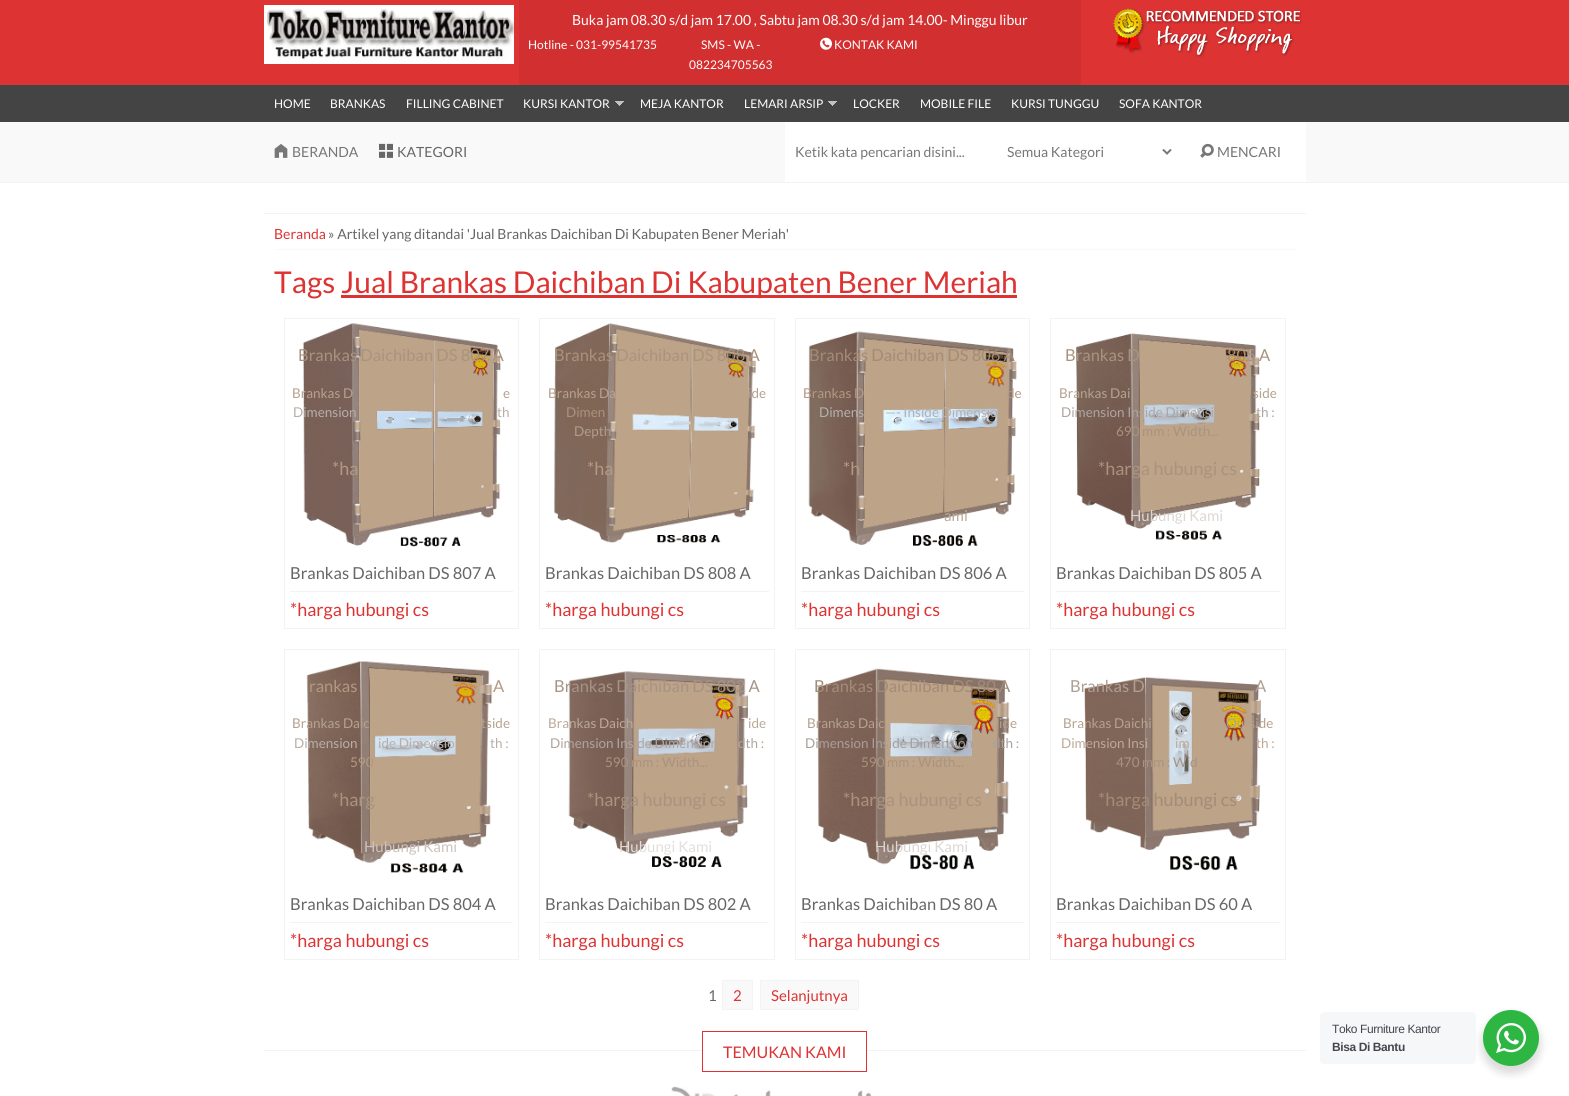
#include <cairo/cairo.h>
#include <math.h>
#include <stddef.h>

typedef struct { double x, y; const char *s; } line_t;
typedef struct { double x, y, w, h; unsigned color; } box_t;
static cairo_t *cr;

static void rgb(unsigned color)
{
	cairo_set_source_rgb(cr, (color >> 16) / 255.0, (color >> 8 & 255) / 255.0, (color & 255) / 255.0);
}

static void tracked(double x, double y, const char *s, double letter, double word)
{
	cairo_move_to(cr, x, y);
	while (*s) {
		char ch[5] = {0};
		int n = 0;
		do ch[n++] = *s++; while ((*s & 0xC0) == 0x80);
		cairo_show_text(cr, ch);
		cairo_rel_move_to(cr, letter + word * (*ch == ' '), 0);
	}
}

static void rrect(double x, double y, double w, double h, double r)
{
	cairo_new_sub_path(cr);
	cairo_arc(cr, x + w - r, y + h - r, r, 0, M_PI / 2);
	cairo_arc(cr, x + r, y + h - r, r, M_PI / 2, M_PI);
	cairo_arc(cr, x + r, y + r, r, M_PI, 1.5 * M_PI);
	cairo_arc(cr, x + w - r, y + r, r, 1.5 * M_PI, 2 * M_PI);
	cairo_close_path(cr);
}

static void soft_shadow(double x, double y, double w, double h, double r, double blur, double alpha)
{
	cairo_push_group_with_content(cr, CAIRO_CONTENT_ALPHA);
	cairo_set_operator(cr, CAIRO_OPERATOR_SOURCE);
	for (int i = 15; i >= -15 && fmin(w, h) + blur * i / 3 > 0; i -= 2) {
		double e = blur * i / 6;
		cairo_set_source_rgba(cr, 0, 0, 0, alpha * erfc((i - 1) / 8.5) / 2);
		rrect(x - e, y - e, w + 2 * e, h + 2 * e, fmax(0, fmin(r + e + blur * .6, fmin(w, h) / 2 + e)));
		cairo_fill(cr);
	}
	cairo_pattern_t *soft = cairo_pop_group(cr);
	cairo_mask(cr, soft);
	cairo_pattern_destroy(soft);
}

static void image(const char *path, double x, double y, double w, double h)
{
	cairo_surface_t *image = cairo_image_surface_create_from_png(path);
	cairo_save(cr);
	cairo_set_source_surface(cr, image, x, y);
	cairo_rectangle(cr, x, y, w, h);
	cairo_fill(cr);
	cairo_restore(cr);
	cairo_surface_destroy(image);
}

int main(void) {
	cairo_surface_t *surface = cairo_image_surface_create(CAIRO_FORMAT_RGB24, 1569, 1096);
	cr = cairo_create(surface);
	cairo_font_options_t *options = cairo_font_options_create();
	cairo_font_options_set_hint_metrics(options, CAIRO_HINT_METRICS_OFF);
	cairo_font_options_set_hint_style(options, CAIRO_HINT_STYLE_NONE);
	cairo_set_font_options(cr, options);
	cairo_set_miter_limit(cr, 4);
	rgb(0xdd3333);
	cairo_paint(cr);
	image("img/1.png", 264, 5, 250, 59);
	rgb(0xd23030);
	cairo_rectangle(cr, 519, 0, 562, 85);
	cairo_fill(cr);
	image("img/2.png", 820, 37, 12, 13);
	image("img/3.png", 1113, 8, 189, 49);
	rgb(0x444444);
	cairo_rectangle(cr, 0, 85, 1569, 37);
	cairo_fill(cr);
	image("img/4.png", 615, 101, 9, 5);
	image("img/4.png", 828, 101, 9, 5);
	rgb(0xf9f9f9);
	cairo_rectangle(cr, 0, 122, 1569, 60);
	cairo_fill(cr);
	rgb(0xf3f3f3);
	cairo_rectangle(cr, 0, 182, 1569, 1);
	cairo_fill(cr);
	image("img/5.png", 274, 144, 14, 14);
	image("img/6.png", 379, 143, 14, 15);
	rgb(0xffffff);
	cairo_rectangle(cr, 785, 122, 521, 60);
	cairo_fill(cr);
	cairo_new_path(cr);
	cairo_move_to(cr, 1163, 149.5);
	cairo_line_to(cr, 1167, 153.5);
	cairo_line_to(cr, 1171, 149.5);
	rgb(0x777777);
	cairo_stroke(cr);
	image("img/7.png", 1200, 143, 14, 15);
	{
		static const box_t items[] = {
			{0, 183, 1569, 913, 0xffffff},
			{264, 213, 1042, 1, 0xf3f3f3},
			{274, 249, 1022, 1, 0xf9f9f9},
			{341, 295, 676, 3, 0xdd3333},
		};
		for (size_t i = 0; i < sizeof items / sizeof *items; i++) {
			rgb(items[i].color);
			cairo_rectangle(cr, items[i].x, items[i].y, items[i].w, items[i].h);
			cairo_fill(cr);
		}
	}
	cairo_rectangle(cr, 284.5, 318.5, 234, 310);
	rgb(0xf3f3f3);
	cairo_set_line_width(cr, 1);
	cairo_stroke(cr);
	image("img/8.png", 302, 323, 199, 224);
	cairo_rectangle(cr, 290, 591, 223, 1);
	cairo_fill(cr);
	cairo_rectangle(cr, 539.5, 318.5, 235, 310);
	cairo_stroke(cr);
	image("img/9.png", 554, 323, 203, 220);
	cairo_rectangle(cr, 545, 591, 224, 1);
	cairo_fill(cr);
	cairo_rectangle(cr, 795.5, 318.5, 234, 310);
	cairo_stroke(cr);
	image("img/10.png", 808, 331, 209, 215);
	cairo_rectangle(cr, 801, 591, 223, 1);
	cairo_fill(cr);
	cairo_rectangle(cr, 1050.5, 318.5, 235, 310);
	cairo_stroke(cr);
	image("img/11.png", 1076, 333, 184, 207);
	cairo_rectangle(cr, 1056, 591, 224, 1);
	cairo_fill(cr);
	cairo_rectangle(cr, 284.5, 649.5, 234, 310);
	cairo_stroke(cr);
	image("img/12.png", 306, 661, 187, 213);
	cairo_rectangle(cr, 290, 922, 223, 1);
	cairo_fill(cr);
	cairo_rectangle(cr, 539.5, 649.5, 235, 310);
	cairo_stroke(cr);
	image("img/13.png", 568, 671, 181, 197);
	cairo_rectangle(cr, 545, 922, 224, 1);
	cairo_fill(cr);
	cairo_rectangle(cr, 795.5, 649.5, 234, 310);
	cairo_stroke(cr);
	image("img/14.png", 817, 668, 193, 202);
	cairo_rectangle(cr, 801, 922, 223, 1);
	cairo_fill(cr);
	cairo_rectangle(cr, 1050.5, 649.5, 235, 310);
	cairo_stroke(cr);
	image("img/15.png", 1084, 677, 177, 194);
	cairo_rectangle(cr, 1056, 922, 224, 1);
	cairo_fill(cr);
	rgb(0xf9f9f9);
	cairo_rectangle(cr, 722.5, 980.5, 30, 29);
	cairo_fill_preserve(cr);
	rgb(0xf3f3f3);
	cairo_stroke(cr);
	rgb(0xf9f9f9);
	cairo_rectangle(cr, 760.5, 980.5, 98, 29);
	cairo_fill_preserve(cr);
	rgb(0xf3f3f3);
	cairo_stroke(cr);
	cairo_rectangle(cr, 264, 1050, 1042, 1);
	cairo_fill(cr);
	rgb(0xffffff);
	cairo_rectangle(cr, 703, 1050, 163, 1);
	cairo_fill(cr);
	cairo_rectangle(cr, 702.5, 1031.5, 164, 40);
	rgb(0xdd3333);
	cairo_stroke(cr);
	image("img/16.png", 671, 1086, 201, 10);
	rgb(0x000000);
	soft_shadow(1481, 1014, 60, 60, 30, 4, 0.14);
	rgb(0xf5f7f9);
	rrect(1320, 1012, 156, 52, 4);
	cairo_fill(cr);
	rgb(0x2db742);
	cairo_arc(cr, 1511, 1038, 28, 0, 2 * M_PI);
	cairo_fill(cr);
	image("img/17.png", 1496, 1023, 30, 30);
	cairo_select_font_face(cr, "Lato", CAIRO_FONT_SLANT_NORMAL, CAIRO_FONT_WEIGHT_NORMAL);
	cairo_set_font_size(cr, 14);
	rgb(0xffffff);
	cairo_move_to(cr, 572, 25);
	cairo_show_text(cr, "Buka jam 08.30 s/d jam 17.00 , Sabtu jam 08.30 s/d jam 14.00- Minggu libur");
	cairo_set_font_size(cr, 12);
	{
		static const line_t items[] = {
			{528, 49, "Hotline - 031-99541735"},
			{701, 49, "SMS - WA -"},
			{689, 69, "082234705563"},
			{834, 49, "KONTAK KAMI"},
			{274, 108, "HOME"},
			{330, 108, "BRANKAS"},
			{406, 108, "FILLING CABINET"},
			{523, 108, "KURSI KANTOR"},
			{640, 108, "MEJA KANTOR"},
			{744, 108, "LEMARI ARSIP"},
			{853, 108, "LOCKER"},
			{920, 108, "MOBILE FILE"},
			{1011, 108, "KURSI TUNGGU"},
			{1119, 108, "SOFA KANTOR"},
		};
		for (size_t i = 0; i < sizeof items / sizeof *items; i++) {
			cairo_move_to(cr, items[i].x, items[i].y);
			cairo_show_text(cr, items[i].s);
		}
	}
	cairo_set_font_size(cr, 14);
	rgb(0x777777);
	cairo_move_to(cr, 292, 157);
	cairo_show_text(cr, "BERANDA");
	rgb(0x666666);
	cairo_move_to(cr, 397, 157);
	cairo_show_text(cr, "KATEGORI");
	rgb(0x777777);
	{
		static const line_t items[] = {
			{795, 157, "Ketik kata pencarian disini..."},
			{1007, 157, "Semua Kategori"},
			{1217, 157, "MENCARI"},
		};
		for (size_t i = 0; i < sizeof items / sizeof *items; i++) {
			cairo_move_to(cr, items[i].x, items[i].y);
			cairo_show_text(cr, items[i].s);
		}
	}
	rgb(0xdd3333);
	cairo_move_to(cr, 274, 239);
	cairo_show_text(cr, "Beranda");
	rgb(0x666666);
	cairo_move_to(cr, 328, 239);
	cairo_show_text(cr, "» Artikel yang ditandai 'Jual Brankas Daichiban Di Kabupaten Bener Meriah'");
	cairo_set_font_size(cr, 30);
	rgb(0xdd3333);
	cairo_move_to(cr, 274, 293);
	cairo_show_text(cr, "Tags");
	cairo_move_to(cr, 341, 293);
	cairo_show_text(cr, "Jual Brankas Daichiban Di Kabupaten Bener Meriah");
	cairo_set_font_size(cr, 16.5);
	rgb(0xaa927d);
	cairo_move_to(cr, 298, 361);
	cairo_show_text(cr, "Brankas Daichiban DS 807 A");
	cairo_set_font_size(cr, 13.5);
	rgb(0xb6a18f);
	cairo_move_to(cr, 292, 398);
	cairo_show_text(cr, "Brankas D");
	cairo_move_to(cr, 503, 398);
	cairo_show_text(cr, "e");
	rgb(0xb7aea9);
	cairo_move_to(cr, 293, 417);
	cairo_show_text(cr, "Dimension");
	cairo_move_to(cr, 497, 417);
	cairo_show_text(cr, "th");
	cairo_set_font_size(cr, 18);
	rgb(0xb39982);
	cairo_move_to(cr, 332, 475);
	cairo_show_text(cr, "*ha");
	cairo_set_font_size(cr, 16.5);
	rgb(0x666666);
	cairo_move_to(cr, 290, 579);
	cairo_show_text(cr, "Brankas Daichiban DS 807 A");
	cairo_set_font_size(cr, 18);
	rgb(0xdd3333);
	cairo_move_to(cr, 290, 616);
	cairo_show_text(cr, "*harga hubungi cs");
	cairo_set_font_size(cr, 16.5);
	rgb(0xaa927d);
	cairo_move_to(cr, 554, 361);
	cairo_show_text(cr, "Brankas Daichiban DS 808 A");
	cairo_set_font_size(cr, 13.5);
	rgb(0xb6a18f);
	cairo_move_to(cr, 548, 398);
	cairo_show_text(cr, "Brankas Da");
	cairo_move_to(cr, 748, 398);
	cairo_show_text(cr, "ide");
	rgb(0xaa927d);
	cairo_move_to(cr, 566, 417);
	cairo_show_text(cr, "Dimen");
	rgb(0xb09d8c);
	cairo_move_to(cr, 574, 436);
	cairo_show_text(cr, "Depth");
	cairo_set_font_size(cr, 18);
	rgb(0xb39982);
	cairo_move_to(cr, 587, 475);
	cairo_show_text(cr, "*ha");
	cairo_set_font_size(cr, 16.5);
	rgb(0x666666);
	cairo_move_to(cr, 545, 579);
	cairo_show_text(cr, "Brankas Daichiban DS 808 A");
	cairo_set_font_size(cr, 18);
	rgb(0xdd3333);
	cairo_move_to(cr, 545, 616);
	cairo_show_text(cr, "*harga hubungi cs");
	cairo_set_font_size(cr, 16.5);
	rgb(0xa38b76);
	cairo_move_to(cr, 809, 361);
	cairo_show_text(cr, "Brankas Daichiban DS 806 A");
	cairo_set_font_size(cr, 13.5);
	rgb(0xb39982);
	cairo_move_to(cr, 803, 398);
	cairo_show_text(cr, "Brankas D");
	cairo_move_to(cr, 1007, 398);
	cairo_show_text(cr, "de");
	rgb(0xb3b1b0);
	cairo_move_to(cr, 819, 417);
	cairo_show_text(cr, "Dimens");
	cairo_move_to(cr, 885, 417);
	cairo_show_text(cr, "—- Inside Dimensio");
	cairo_set_font_size(cr, 18);
	rgb(0xb39982);
	cairo_move_to(cr, 843, 475);
	cairo_show_text(cr, "*h");
	cairo_set_font_size(cr, 15);
	rgb(0xbca998);
	cairo_move_to(cr, 944, 521);
	cairo_show_text(cr, "ami");
	cairo_set_font_size(cr, 16.5);
	rgb(0x666666);
	cairo_move_to(cr, 801, 579);
	cairo_show_text(cr, "Brankas Daichiban DS 806 A");
	cairo_set_font_size(cr, 18);
	rgb(0xdd3333);
	cairo_move_to(cr, 801, 616);
	cairo_show_text(cr, "*harga hubungi cs");
	cairo_set_font_size(cr, 16.5);
	rgb(0xaa927d);
	cairo_move_to(cr, 1065, 361);
	cairo_show_text(cr, "Brankas D");
	cairo_move_to(cr, 1227, 361);
	cairo_show_text(cr, "805 A");
	cairo_set_font_size(cr, 13.5);
	rgb(0xb6a18f);
	cairo_move_to(cr, 1059, 398);
	cairo_show_text(cr, "Brankas Dai");
	cairo_move_to(cr, 1253, 398);
	cairo_show_text(cr, "side");
	rgb(0xafa5a0);
	cairo_move_to(cr, 1061, 417);
	cairo_show_text(cr, "Dimension Inside Dimensi");
	cairo_move_to(cr, 1256, 417);
	cairo_show_text(cr, "th :");
	rgb(0xaa927d);
	cairo_move_to(cr, 1116, 436);
	cairo_show_text(cr, "690 mm : Width...");
	cairo_set_font_size(cr, 18);
	cairo_move_to(cr, 1098, 475);
	cairo_show_text(cr, "*harga hubungi cs");
	cairo_set_font_size(cr, 15);
	rgb(0xddd7d4);
	cairo_move_to(cr, 1130, 521);
	cairo_show_text(cr, "Hubungi Kami");
	cairo_set_font_size(cr, 16.5);
	rgb(0x666666);
	cairo_move_to(cr, 1056, 579);
	cairo_show_text(cr, "Brankas Daichiban DS 805 A");
	cairo_set_font_size(cr, 18);
	rgb(0xdd3333);
	cairo_move_to(cr, 1056, 616);
	cairo_show_text(cr, "*harga hubungi cs");
	cairo_set_font_size(cr, 16.5);
	rgb(0xb39982);
	cairo_move_to(cr, 309, 692);
	cairo_show_text(cr, "rankas");
	cairo_move_to(cr, 493, 692);
	cairo_show_text(cr, "A");
	cairo_set_font_size(cr, 13.5);
	rgb(0xb6a18f);
	cairo_move_to(cr, 292, 728);
	cairo_show_text(cr, "Brankas Daic");
	cairo_move_to(cr, 481, 728);
	cairo_show_text(cr, "tside");
	rgb(0xb7aea9);
	{
		static const line_t items[] = {
			{294, 748, "Dimension"},
			{378, 748, "ide Dimensio"},
			{490, 748, "th :"},
		};
		for (size_t i = 0; i < sizeof items / sizeof *items; i++) {
			cairo_move_to(cr, items[i].x, items[i].y);
			cairo_show_text(cr, items[i].s);
		}
	}
	rgb(0xb39982);
	cairo_move_to(cr, 350, 767);
	cairo_show_text(cr, "590");
	cairo_set_font_size(cr, 18);
	rgb(0xaa927d);
	cairo_move_to(cr, 332, 806);
	cairo_show_text(cr, "*harg");
	cairo_set_font_size(cr, 15);
	rgb(0xcdc3bd);
	cairo_move_to(cr, 364, 852);
	cairo_show_text(cr, "Hubungi Kami");
	cairo_set_font_size(cr, 16.5);
	rgb(0x666666);
	cairo_move_to(cr, 290, 910);
	cairo_show_text(cr, "Brankas Daichiban DS 804 A");
	cairo_set_font_size(cr, 18);
	rgb(0xdd3333);
	cairo_move_to(cr, 290, 947);
	cairo_show_text(cr, "*harga hubungi cs");
	cairo_set_font_size(cr, 16.5);
	rgb(0xa69384);
	cairo_move_to(cr, 554, 692);
	cairo_show_text(cr, "Brankas Daichiban DS 802 A");
	cairo_set_font_size(cr, 13.5);
	rgb(0xbca998);
	cairo_move_to(cr, 548, 728);
	cairo_show_text(cr, "Brankas Daich");
	cairo_move_to(cr, 748, 728);
	cairo_show_text(cr, "ide");
	rgb(0xafa5a0);
	cairo_move_to(cr, 550, 748);
	cairo_show_text(cr, "Dimension Inside Dimension");
	cairo_move_to(cr, 738, 748);
	cairo_show_text(cr, "dth :");
	rgb(0xaa927d);
	cairo_move_to(cr, 605, 767);
	cairo_show_text(cr, "590 mm : Width...");
	cairo_set_font_size(cr, 18);
	cairo_move_to(cr, 587, 806);
	cairo_show_text(cr, "*harga hubungi cs");
	cairo_set_font_size(cr, 15);
	rgb(0xe3dfdc);
	cairo_move_to(cr, 619, 852);
	cairo_show_text(cr, "Hubungi Kami");
	cairo_set_font_size(cr, 16.5);
	rgb(0x666666);
	cairo_move_to(cr, 545, 910);
	cairo_show_text(cr, "Brankas Daichiban DS 802 A");
	cairo_set_font_size(cr, 18);
	rgb(0xdd3333);
	cairo_move_to(cr, 545, 947);
	cairo_show_text(cr, "*harga hubungi cs");
	cairo_set_font_size(cr, 16.5);
	rgb(0xa38b76);
	cairo_move_to(cr, 814, 692);
	cairo_show_text(cr, "Brankas Daichiban DS 80 A");
	cairo_set_font_size(cr, 13.5);
	rgb(0xb6a18f);
	cairo_move_to(cr, 807, 728);
	cairo_show_text(cr, "Brankas Daic");
	cairo_move_to(cr, 999, 728);
	cairo_show_text(cr, "ide");
	rgb(0xa99f9b);
	cairo_move_to(cr, 805, 748);
	cairo_show_text(cr, "Dimension Inside Dimension");
	cairo_move_to(cr, 993, 748);
	cairo_show_text(cr, "dth :");
	rgb(0xaa927d);
	cairo_move_to(cr, 861, 767);
	cairo_show_text(cr, "590 mm : Width...");
	cairo_set_font_size(cr, 18);
	cairo_move_to(cr, 843, 806);
	cairo_show_text(cr, "*harga hubungi cs");
	cairo_set_font_size(cr, 15);
	rgb(0xddd7d4);
	cairo_move_to(cr, 875, 852);
	cairo_show_text(cr, "Hubungi Kami");
	cairo_set_font_size(cr, 16.5);
	rgb(0x666666);
	cairo_move_to(cr, 801, 910);
	cairo_show_text(cr, "Brankas Daichiban DS 80 A");
	cairo_set_font_size(cr, 18);
	rgb(0xdd3333);
	cairo_move_to(cr, 801, 947);
	cairo_show_text(cr, "*harga hubungi cs");
	cairo_set_font_size(cr, 16.5);
	rgb(0xaf9e93);
	cairo_move_to(cr, 1070, 692);
	cairo_show_text(cr, "Brankas D");
	cairo_move_to(cr, 1255, 692);
	cairo_show_text(cr, "A");
	cairo_set_font_size(cr, 13.5);
	rgb(0xb6a18f);
	cairo_move_to(cr, 1063, 728);
	cairo_show_text(cr, "Brankas Daichi");
	cairo_move_to(cr, 1226, 728);
	cairo_show_text(cr, "Outside");
	rgb(0xbca998);
	{
		static const line_t items[] = {
			{1061, 748, "Dimension Insi"},
			{1175, 748, "im"},
			{1256, 748, "th :"},
		};
		for (size_t i = 0; i < sizeof items / sizeof *items; i++) {
			cairo_move_to(cr, items[i].x, items[i].y);
			cairo_show_text(cr, items[i].s);
		}
	}
	rgb(0xa69384);
	cairo_move_to(cr, 1116, 767);
	cairo_show_text(cr, "470 mm : Wid");
	cairo_set_font_size(cr, 18);
	rgb(0xa38b76);
	cairo_move_to(cr, 1098, 806);
	cairo_show_text(cr, "*harga hubungi cs");
	cairo_set_font_size(cr, 16.5);
	rgb(0x666666);
	cairo_move_to(cr, 1056, 910);
	cairo_show_text(cr, "Brankas Daichiban DS 60 A");
	cairo_set_font_size(cr, 18);
	rgb(0xdd3333);
	cairo_move_to(cr, 1056, 947);
	cairo_show_text(cr, "*harga hubungi cs");
	cairo_set_font_size(cr, 15);
	rgb(0x666666);
	cairo_move_to(cr, 708, 1001);
	cairo_show_text(cr, "1");
	rgb(0xdd3333);
	cairo_move_to(cr, 733, 1001);
	cairo_show_text(cr, "2");
	cairo_move_to(cr, 771, 1001);
	cairo_show_text(cr, "Selanjutnya");
	cairo_set_font_size(cr, 16);
	cairo_move_to(cr, 723, 1058);
	cairo_show_text(cr, "TEMUKAN KAMI");
	cairo_select_font_face(cr, "Liberation Sans", CAIRO_FONT_SLANT_NORMAL, CAIRO_FONT_WEIGHT_NORMAL);
	cairo_set_font_size(cr, 12);
	rgb(0x43474e);
	tracked(1332, 1033, "Toko Furniture Kantor", -0.4, 0);
	cairo_select_font_face(cr, "Liberation Sans", CAIRO_FONT_SLANT_NORMAL, CAIRO_FONT_WEIGHT_BOLD);
	tracked(1332, 1051, "Bisa Di Bantu", -0.4, 0);
	cairo_surface_write_to_png(surface, "page.png");
	cairo_font_options_destroy(options);
	cairo_destroy(cr);
	cairo_surface_destroy(surface);
	return 0;
}
